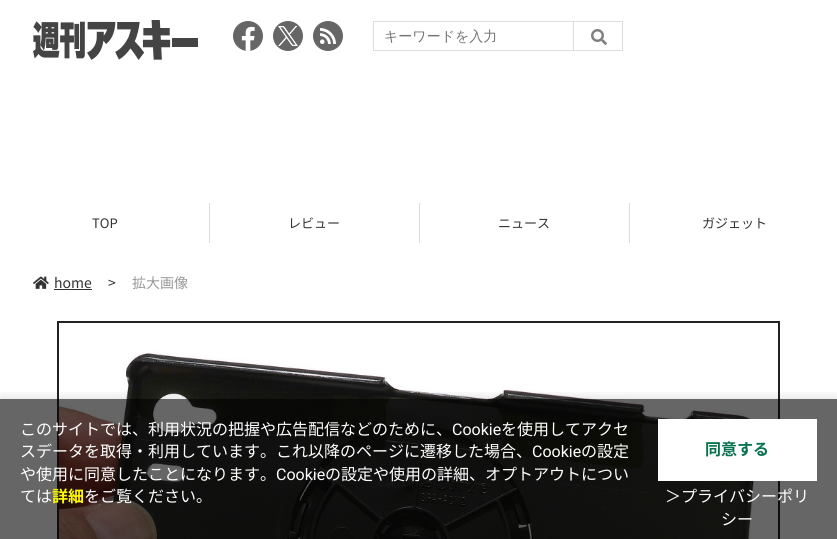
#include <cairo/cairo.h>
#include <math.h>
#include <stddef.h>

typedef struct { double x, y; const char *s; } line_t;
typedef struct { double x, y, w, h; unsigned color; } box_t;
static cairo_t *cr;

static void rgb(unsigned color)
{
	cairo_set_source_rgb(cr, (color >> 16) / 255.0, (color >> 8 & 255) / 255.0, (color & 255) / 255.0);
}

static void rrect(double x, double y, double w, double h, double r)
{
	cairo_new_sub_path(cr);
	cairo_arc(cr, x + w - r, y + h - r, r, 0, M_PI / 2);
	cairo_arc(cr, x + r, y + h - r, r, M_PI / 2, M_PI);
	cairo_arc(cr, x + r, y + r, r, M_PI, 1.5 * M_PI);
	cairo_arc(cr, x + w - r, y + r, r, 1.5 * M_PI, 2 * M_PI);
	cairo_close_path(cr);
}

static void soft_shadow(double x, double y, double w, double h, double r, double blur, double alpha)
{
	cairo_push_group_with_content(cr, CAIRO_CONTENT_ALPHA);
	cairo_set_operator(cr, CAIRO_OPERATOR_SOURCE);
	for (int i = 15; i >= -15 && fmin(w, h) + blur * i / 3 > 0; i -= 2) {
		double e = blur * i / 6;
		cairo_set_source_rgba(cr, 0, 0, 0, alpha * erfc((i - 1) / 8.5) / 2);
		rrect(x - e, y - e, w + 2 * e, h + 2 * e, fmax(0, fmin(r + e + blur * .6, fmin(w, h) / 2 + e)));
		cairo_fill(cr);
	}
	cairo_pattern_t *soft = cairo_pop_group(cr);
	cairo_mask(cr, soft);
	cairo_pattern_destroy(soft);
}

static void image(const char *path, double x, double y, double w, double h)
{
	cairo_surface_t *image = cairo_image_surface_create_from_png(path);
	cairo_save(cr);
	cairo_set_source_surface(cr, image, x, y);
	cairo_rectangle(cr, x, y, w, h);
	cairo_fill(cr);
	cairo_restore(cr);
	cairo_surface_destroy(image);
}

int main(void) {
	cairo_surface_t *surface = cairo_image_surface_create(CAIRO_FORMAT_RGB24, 837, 539);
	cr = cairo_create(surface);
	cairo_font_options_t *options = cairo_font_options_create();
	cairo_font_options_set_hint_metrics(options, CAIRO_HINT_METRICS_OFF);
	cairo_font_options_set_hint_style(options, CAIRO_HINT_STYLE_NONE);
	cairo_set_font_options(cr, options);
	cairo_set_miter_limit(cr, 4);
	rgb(0xffffff);
	cairo_paint(cr);
	image("img/1.png", 33, 20, 165, 40);
	image("img/2.png", 233, 21, 30, 30);
	rgb(0x666666);
	cairo_arc(cr, 288, 36, 15, 0, 2 * M_PI);
	cairo_fill(cr);
	image("img/3.png", 278, 26, 20, 20);
	image("img/4.png", 313, 21, 30, 30);
	{
		static const box_t items[] = {
			{373, 21, 200, 1, 0xdddddd},
			{373, 50, 200, 1, 0xdddddd},
			{373, 21, 1, 30, 0xdddddd},
		};
		for (size_t i = 0; i < sizeof items / sizeof *items; i++) {
			rgb(items[i].color);
			cairo_rectangle(cr, items[i].x, items[i].y, items[i].w, items[i].h);
			cairo_fill(cr);
		}
	}
	cairo_rectangle(cr, 573.5, 21.5, 49, 29);
	cairo_set_line_width(cr, 1);
	cairo_stroke(cr);
	image("img/5.png", 591, 29, 16, 16);
	{
		static const box_t items[] = {
			{209, 203, 1, 40, 0xdddddd},
			{419, 203, 1, 40, 0xdddddd},
			{629, 203, 1, 40, 0xdddddd},
		};
		for (size_t i = 0; i < sizeof items / sizeof *items; i++) {
			rgb(items[i].color);
			cairo_rectangle(cr, items[i].x, items[i].y, items[i].w, items[i].h);
			cairo_fill(cr);
		}
	}
	image("img/6.png", 33, 276, 16, 13);
	rgb(0x333333);
	cairo_rectangle(cr, 54, 289, 38, 1);
	cairo_fill(cr);
	rgb(0x222222);
	cairo_rectangle(cr, 57, 321, 723, 218);
	cairo_fill(cr);
	image("img/7.png", 59, 323, 719, 216);
	cairo_save(cr);
	cairo_rectangle(cr, 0, 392, 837, 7);
	cairo_clip(cr);
	rgb(0x000000);
	soft_shadow(0, 396, 837, 140, 0, 5, 0.1);
	cairo_restore(cr);
	cairo_set_source_rgba(cr, 0, 0, 0, 0.6);
	cairo_rectangle(cr, 0, 399, 837, 140);
	cairo_fill(cr);
	rgb(0xffffff);
	cairo_rectangle(cr, 658, 419, 159, 62);
	cairo_fill(cr);
	cairo_select_font_face(cr, "WenQuanYi Zen Hei Medium", CAIRO_FONT_SLANT_NORMAL, CAIRO_FONT_WEIGHT_NORMAL);
	cairo_set_font_size(cr, 14);
	rgb(0x757575);
	cairo_move_to(cr, 384, 41);
	cairo_show_text(cr, "キーワードを入力");
	cairo_select_font_face(cr, "Noto Sans JP Thin", CAIRO_FONT_SLANT_NORMAL, CAIRO_FONT_WEIGHT_NORMAL);
	cairo_set_font_size(cr, 13);
	rgb(0x333333);
	{
		static const line_t items[] = {
			{92, 228, "TOP"},
			{288, 228, "レビュー"},
			{498, 228, "ニュース"},
			{702, 228, "ガジェット"},
		};
		for (size_t i = 0; i < sizeof items / sizeof *items; i++) {
			cairo_move_to(cr, items[i].x, items[i].y);
			cairo_show_text(cr, items[i].s);
		}
	}
	cairo_set_font_size(cr, 14);
	cairo_move_to(cr, 54, 288);
	cairo_show_text(cr, "home");
	cairo_move_to(cr, 108, 288);
	cairo_show_text(cr, ">");
	rgb(0x999999);
	cairo_move_to(cr, 132, 288);
	cairo_show_text(cr, "拡大画像");
	cairo_set_font_size(cr, 16);
	rgb(0xffffff);
	cairo_move_to(cr, 20, 435);
	cairo_show_text(cr, "このサイトでは、利用状況の把握や広告配信などのために、");
	cairo_select_font_face(cr, "Roboto", CAIRO_FONT_SLANT_NORMAL, CAIRO_FONT_WEIGHT_NORMAL);
	cairo_move_to(cr, 452, 435);
	cairo_show_text(cr, "Cookie");
	cairo_select_font_face(cr, "Noto Sans JP Thin", CAIRO_FONT_SLANT_NORMAL, CAIRO_FONT_WEIGHT_NORMAL);
	cairo_move_to(cr, 501, 435);
	cairo_show_text(cr, "を使用してアクセ");
	cairo_move_to(cr, 20, 457);
	cairo_show_text(cr, "スデータを取得・利用しています。これ以降のページに遷移した場合、");
	cairo_select_font_face(cr, "Roboto", CAIRO_FONT_SLANT_NORMAL, CAIRO_FONT_WEIGHT_NORMAL);
	cairo_move_to(cr, 532, 457);
	cairo_show_text(cr, "Cookie");
	cairo_select_font_face(cr, "Noto Sans JP Thin", CAIRO_FONT_SLANT_NORMAL, CAIRO_FONT_WEIGHT_NORMAL);
	cairo_move_to(cr, 581, 457);
	cairo_show_text(cr, "の設定");
	cairo_move_to(cr, 20, 480);
	cairo_show_text(cr, "や使用に同意したことになります。");
	cairo_select_font_face(cr, "Roboto", CAIRO_FONT_SLANT_NORMAL, CAIRO_FONT_WEIGHT_NORMAL);
	cairo_move_to(cr, 276, 480);
	cairo_show_text(cr, "Cookie");
	cairo_select_font_face(cr, "Noto Sans JP Thin", CAIRO_FONT_SLANT_NORMAL, CAIRO_FONT_WEIGHT_NORMAL);
	cairo_move_to(cr, 325, 480);
	cairo_show_text(cr, "の設定や使用の詳細、オプトアウトについ");
	cairo_move_to(cr, 20, 502);
	cairo_show_text(cr, "ては");
	cairo_select_font_face(cr, "Noto Sans JP", CAIRO_FONT_SLANT_NORMAL, CAIRO_FONT_WEIGHT_BOLD);
	rgb(0xfffa00);
	cairo_move_to(cr, 52, 502);
	cairo_show_text(cr, "詳細");
	cairo_select_font_face(cr, "Noto Sans JP Thin", CAIRO_FONT_SLANT_NORMAL, CAIRO_FONT_WEIGHT_NORMAL);
	rgb(0xffffff);
	cairo_move_to(cr, 84, 502);
	cairo_show_text(cr, "をご覧ください。");
	cairo_select_font_face(cr, "Noto Sans JP", CAIRO_FONT_SLANT_NORMAL, CAIRO_FONT_WEIGHT_BOLD);
	rgb(0x05724b);
	cairo_move_to(cr, 705, 455);
	cairo_show_text(cr, "同意する");
	cairo_select_font_face(cr, "Noto Sans JP Thin", CAIRO_FONT_SLANT_NORMAL, CAIRO_FONT_WEIGHT_NORMAL);
	rgb(0xffffff);
	cairo_move_to(cr, 665, 502);
	cairo_show_text(cr, "＞プライバシーポリ");
	cairo_move_to(cr, 721, 525);
	cairo_show_text(cr, "シー");
	cairo_surface_write_to_png(surface, "page.png");
	cairo_font_options_destroy(options);
	cairo_destroy(cr);
	cairo_surface_destroy(surface);
	return 0;
}
